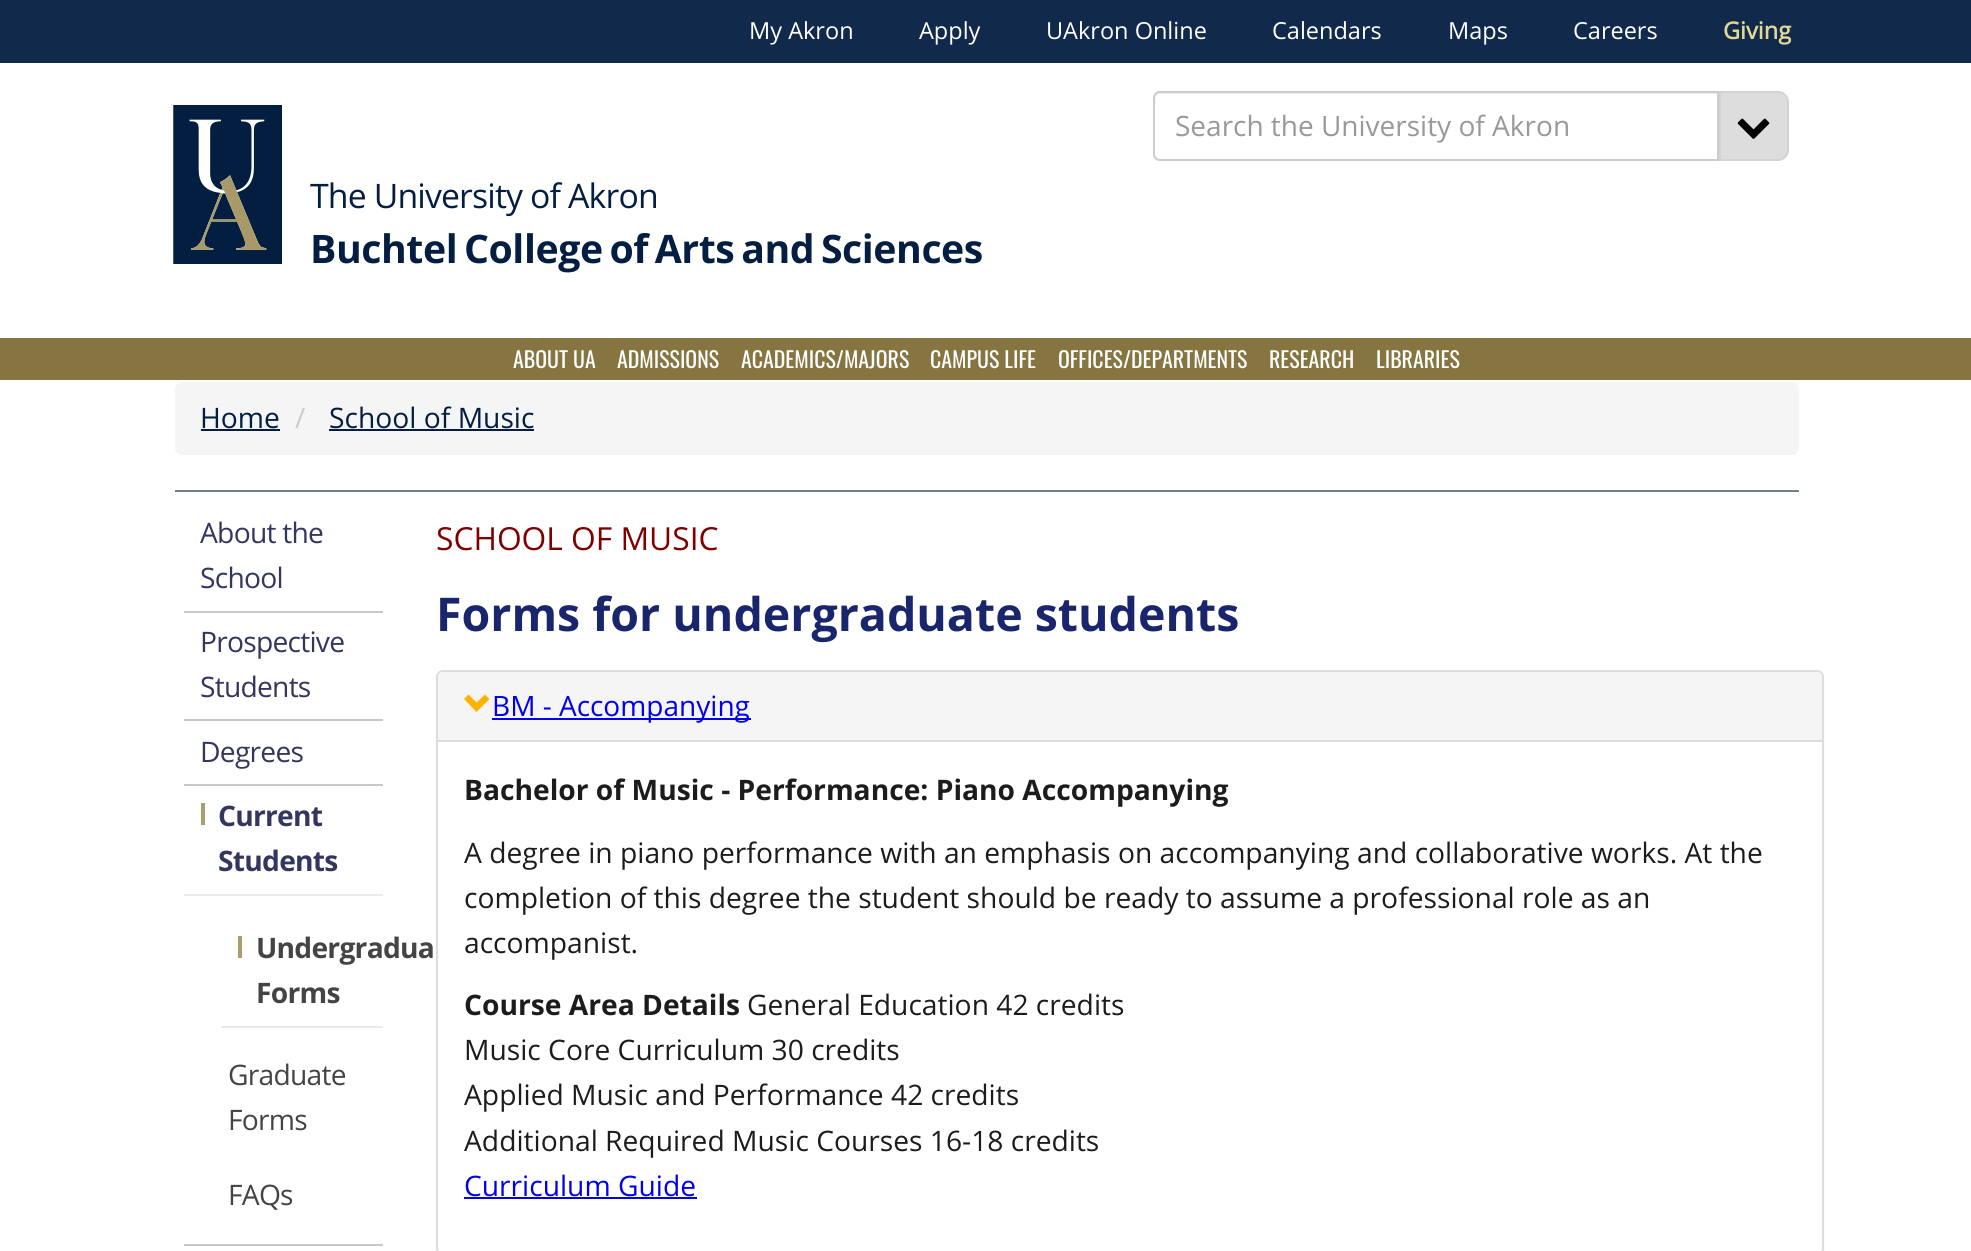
#include <cairo/cairo.h>
#include <math.h>
#include <stddef.h>

typedef struct { double x, y; const char *s; } line_t;
typedef struct { double x, y, w, h; unsigned color; } box_t;
static cairo_t *cr;

static void rgb(unsigned color)
{
	cairo_set_source_rgb(cr, (color >> 16) / 255.0, (color >> 8 & 255) / 255.0, (color & 255) / 255.0);
}

static void tracked(double x, double y, const char *s, double letter, double word)
{
	cairo_move_to(cr, x, y);
	while (*s) {
		char ch[5] = {0};
		int n = 0;
		do ch[n++] = *s++; while ((*s & 0xC0) == 0x80);
		cairo_show_text(cr, ch);
		cairo_rel_move_to(cr, letter + word * (*ch == ' '), 0);
	}
}

static void rrect(double x, double y, double w, double h, double r)
{
	cairo_new_sub_path(cr);
	cairo_arc(cr, x + w - r, y + h - r, r, 0, M_PI / 2);
	cairo_arc(cr, x + r, y + h - r, r, M_PI / 2, M_PI);
	cairo_arc(cr, x + r, y + r, r, M_PI, 1.5 * M_PI);
	cairo_arc(cr, x + w - r, y + r, r, 1.5 * M_PI, 2 * M_PI);
	cairo_close_path(cr);
}

static void soft_shadow(double x, double y, double w, double h, double r, double blur, double alpha)
{
	cairo_push_group_with_content(cr, CAIRO_CONTENT_ALPHA);
	cairo_set_operator(cr, CAIRO_OPERATOR_SOURCE);
	for (int i = 15; i >= -15 && fmin(w, h) + blur * i / 3 > 0; i -= 2) {
		double e = blur * i / 6;
		cairo_set_source_rgba(cr, 0, 0, 0, alpha * erfc((i - 1) / 8.5) / 2);
		rrect(x - e, y - e, w + 2 * e, h + 2 * e, fmax(0, fmin(r + e + blur * .6, fmin(w, h) / 2 + e)));
		cairo_fill(cr);
	}
	cairo_pattern_t *soft = cairo_pop_group(cr);
	cairo_mask(cr, soft);
	cairo_pattern_destroy(soft);
}

static void image(const char *path, double x, double y, double w, double h)
{
	cairo_surface_t *image = cairo_image_surface_create_from_png(path);
	cairo_save(cr);
	cairo_set_source_surface(cr, image, x, y);
	cairo_rectangle(cr, x, y, w, h);
	cairo_fill(cr);
	cairo_restore(cr);
	cairo_surface_destroy(image);
}

int main(void) {
	cairo_surface_t *surface = cairo_image_surface_create(CAIRO_FORMAT_RGB24, 1971, 1251);
	cr = cairo_create(surface);
	cairo_font_options_t *options = cairo_font_options_create();
	cairo_font_options_set_hint_metrics(options, CAIRO_HINT_METRICS_OFF);
	cairo_font_options_set_hint_style(options, CAIRO_HINT_STYLE_NONE);
	cairo_set_font_options(cr, options);
	cairo_set_miter_limit(cr, 4);
	rgb(0xffffff);
	cairo_paint(cr);
	rgb(0x11294b);
	cairo_rectangle(cr, 0, 0, 1971, 63);
	cairo_fill(cr);
	rgb(0xececec);
	cairo_new_path(cr);
	cairo_move_to(cr, 1160, 94);
	cairo_line_to(cr, 1717, 94);
	cairo_line_to(cr, 1717, 93);
	cairo_line_to(cr, 1160, 93);
	cairo_curve_to(cr, 1156, 93, 1155, 97, 1155, 100);
	cairo_curve_to(cr, 1155, 97, 1157, 94, 1160, 94);
	cairo_close_path(cr);
	cairo_fill(cr);
	cairo_new_path(cr);
	cairo_move_to(cr, 1160, 92);
	cairo_line_to(cr, 1718, 92);
	cairo_line_to(cr, 1718, 160);
	cairo_line_to(cr, 1160, 160);
	cairo_curve_to(cr, 1156.5, 160, 1154, 157.5, 1154, 154);
	cairo_line_to(cr, 1154, 98);
	cairo_curve_to(cr, 1154, 94.5, 1156.5, 92, 1160, 92);
	cairo_close_path(cr);
	rgb(0xcccccc);
	cairo_stroke(cr);
	rgb(0xdddddd);
	cairo_new_path(cr);
	cairo_move_to(cr, 1720, 92);
	cairo_line_to(cr, 1778, 92);
	cairo_curve_to(cr, 1783.5, 92, 1788, 96.5, 1788, 102);
	cairo_line_to(cr, 1788, 150);
	cairo_curve_to(cr, 1788, 155.5, 1783.5, 160, 1778, 160);
	cairo_line_to(cr, 1720, 160);
	cairo_close_path(cr);
	cairo_fill_preserve(cr);
	rgb(0xd3d3d3);
	cairo_stroke(cr);
	image("img/1.png", 1737, 118, 33, 21);
	image("img/2.png", 173, 105, 109, 159);
	rgb(0x867540);
	cairo_rectangle(cr, 0, 338, 1971, 42);
	cairo_fill(cr);
	rgb(0xf5f5f5);
	rrect(175, 382, 1624, 73, 7);
	cairo_fill(cr);
	{
		static const box_t items[] = {
			{201, 429, 79, 2, 0x041e42},
			{329, 429, 205, 2, 0x041e42},
			{175, 490, 1624, 2, 0x708090},
			{184, 611, 199, 2, 0xc5c9cc},
			{184, 719, 199, 2, 0xc5c9cc},
			{184, 784, 199, 2, 0xc5c9cc},
			{184, 1244, 199, 2, 0xc5c9cc},
			{201, 803, 4, 22, 0xac9d6e},
			{184, 894, 199, 2, 0xebebeb},
			{238, 936, 4, 22, 0xac9d6e},
			{221, 1026, 162, 2, 0xebebeb},
		};
		for (size_t i = 0; i < sizeof items / sizeof *items; i++) {
			rgb(items[i].color);
			cairo_rectangle(cr, items[i].x, items[i].y, items[i].w, items[i].h);
			cairo_fill(cr);
		}
	}
	rgb(0x000000);
	soft_shadow(436, 672, 1388, 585, 7, 1, 0.05);
	rgb(0xffffff);
	rrect(437, 671, 1386, 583, 6);
	cairo_fill_preserve(cr);
	rgb(0xdddddd);
	cairo_stroke(cr);
	rgb(0xf5f5f5);
	cairo_new_path(cr);
	cairo_move_to(cr, 443, 672);
	cairo_line_to(cr, 1817, 672);
	cairo_curve_to(cr, 1820, 672, 1822, 674, 1822, 677);
	cairo_line_to(cr, 1822, 740);
	cairo_line_to(cr, 438, 740);
	cairo_line_to(cr, 438, 677);
	cairo_curve_to(cr, 438, 674, 440, 672, 443, 672);
	cairo_close_path(cr);
	cairo_fill(cr);
	rgb(0xffb300);
	cairo_new_path(cr);
	cairo_move_to(cr, 489.5, 699);
	cairo_line_to(cr, 476.5, 712);
	cairo_line_to(cr, 464, 699);
	cairo_line_to(cr, 468.5, 694.5);
	cairo_line_to(cr, 476.5, 702.5);
	cairo_line_to(cr, 485, 694.5);
	cairo_close_path(cr);
	cairo_fill(cr);
	{
		static const box_t items[] = {
			{492, 718, 259, 2, 0x0000ee},
			{438, 740, 1384, 2, 0xdddddd},
			{464, 1197, 233, 2, 0x0000ee},
		};
		for (size_t i = 0; i < sizeof items / sizeof *items; i++) {
			rgb(items[i].color);
			cairo_rectangle(cr, items[i].x, items[i].y, items[i].w, items[i].h);
			cairo_fill(cr);
		}
	}
	cairo_select_font_face(cr, "Open Sans", CAIRO_FONT_SLANT_NORMAL, CAIRO_FONT_WEIGHT_NORMAL);
	cairo_set_font_size(cr, 23.5);
	rgb(0xffffff);
	{
		static const line_t items[] = {
			{749, 39, "My Akron"},
			{919, 39, "Apply"},
			{1046, 39, "UAkron Online"},
			{1272, 39, "Calendars"},
			{1448, 39, "Maps"},
			{1573, 39, "Careers"},
		};
		for (size_t i = 0; i < sizeof items / sizeof *items; i++) {
			cairo_move_to(cr, items[i].x, items[i].y);
			cairo_show_text(cr, items[i].s);
		}
	}
	cairo_select_font_face(cr, "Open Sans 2", CAIRO_FONT_SLANT_NORMAL, CAIRO_FONT_WEIGHT_BOLD);
	rgb(0xe1d797);
	cairo_move_to(cr, 1723, 39);
	cairo_show_text(cr, "Giving");
	cairo_select_font_face(cr, "Open Sans", CAIRO_FONT_SLANT_NORMAL, CAIRO_FONT_WEIGHT_NORMAL);
	cairo_set_font_size(cr, 28);
	rgb(0x999999);
	cairo_move_to(cr, 1175, 136);
	cairo_show_text(cr, "Search the University of Akron");
	cairo_set_font_size(cr, 33.75);
	rgb(0x041e42);
	tracked(310, 208, "The University of Akron", -0.85, 0);
	cairo_select_font_face(cr, "Open Sans", CAIRO_FONT_SLANT_NORMAL, CAIRO_FONT_WEIGHT_BOLD);
	cairo_set_font_size(cr, 39.25);
	tracked(310, 263, "Buchtel College of Arts and Sciences", -0.45, -3);
	cairo_select_font_face(cr, "Oswald", CAIRO_FONT_SLANT_NORMAL, CAIRO_FONT_WEIGHT_NORMAL);
	cairo_set_font_size(cr, 21.9);
	rgb(0xffffff);
	{
		static const line_t items[] = {
			{513, 368, "ABOUT UA"},
			{617, 368, "ADMISSIONS"},
			{741, 368, "ACADEMICS/MAJORS"},
			{930, 368, "CAMPUS LIFE"},
			{1058, 368, "OFFICES/DEPARTMENTS"},
			{1269, 368, "RESEARCH"},
			{1376, 368, "LIBRARIES"},
		};
		for (size_t i = 0; i < sizeof items / sizeof *items; i++) {
			cairo_move_to(cr, items[i].x, items[i].y);
			cairo_show_text(cr, items[i].s);
		}
	}
	cairo_select_font_face(cr, "Open Sans", CAIRO_FONT_SLANT_NORMAL, CAIRO_FONT_WEIGHT_NORMAL);
	cairo_set_font_size(cr, 28.2);
	rgb(0x041e42);
	cairo_move_to(cr, 200, 428);
	cairo_show_text(cr, "Home");
	rgb(0xcccccc);
	cairo_move_to(cr, 295, 428);
	cairo_show_text(cr, "/");
	rgb(0x041e42);
	cairo_move_to(cr, 329, 428);
	cairo_show_text(cr, "School of Music");
	rgb(0x33365f);
	{
		static const line_t items[] = {
			{200, 543, "About the"},
			{200, 588, "School"},
			{200, 652, "Prospective"},
			{200, 697, "Students"},
			{200, 762, "Degrees"},
		};
		for (size_t i = 0; i < sizeof items / sizeof *items; i++) {
			tracked(items[i].x, items[i].y, items[i].s, -0.75, 0);
		}
	}
	cairo_select_font_face(cr, "Open Sans", CAIRO_FONT_SLANT_NORMAL, CAIRO_FONT_WEIGHT_BOLD);
	tracked(218, 826, "Current", -0.75, 0);
	tracked(218, 871, "Students", -0.75, 0);
	rgb(0x444444);
	tracked(256, 958, "Undergradua", -0.75, 0);
	tracked(256, 1003, "Forms", -0.75, 0);
	cairo_select_font_face(cr, "Open Sans", CAIRO_FONT_SLANT_NORMAL, CAIRO_FONT_WEIGHT_NORMAL);
	{
		static const line_t items[] = {
			{228, 1085, "Graduate"},
			{228, 1130, "Forms"},
			{228, 1205, "FAQs"},
		};
		for (size_t i = 0; i < sizeof items / sizeof *items; i++) {
			tracked(items[i].x, items[i].y, items[i].s, -0.75, 0);
		}
	}
	cairo_set_font_size(cr, 31.75);
	rgb(0x800000);
	cairo_move_to(cr, 436, 550);
	cairo_show_text(cr, "SCHOOL OF MUSIC");
	cairo_select_font_face(cr, "Open Sans", CAIRO_FONT_SLANT_NORMAL, CAIRO_FONT_WEIGHT_BOLD);
	cairo_set_font_size(cr, 46.5);
	rgb(0x19256d);
	cairo_move_to(cr, 436, 631);
	cairo_show_text(cr, "Forms for undergraduate students");
	cairo_select_font_face(cr, "Open Sans", CAIRO_FONT_SLANT_NORMAL, CAIRO_FONT_WEIGHT_NORMAL);
	cairo_set_font_size(cr, 28);
	rgb(0x0000ee);
	cairo_move_to(cr, 492, 716);
	cairo_show_text(cr, "BM - Accompanying");
	cairo_select_font_face(cr, "Open Sans", CAIRO_FONT_SLANT_NORMAL, CAIRO_FONT_WEIGHT_BOLD);
	cairo_set_font_size(cr, 28.2);
	rgb(0x1c1c1c);
	cairo_move_to(cr, 464, 800);
	cairo_show_text(cr, "Bachelor of Music - Performance: Piano Accompanying");
	cairo_select_font_face(cr, "Open Sans", CAIRO_FONT_SLANT_NORMAL, CAIRO_FONT_WEIGHT_NORMAL);
	{
		static const line_t items[] = {
			{464, 863, "A degree in piano performance with an emphasis on accompanying and collaborative works. At the"},
			{464, 908, "completion of this degree the student should be ready to assume a professional role as an"},
			{464, 953, "accompanist."},
		};
		for (size_t i = 0; i < sizeof items / sizeof *items; i++) {
			cairo_move_to(cr, items[i].x, items[i].y);
			cairo_show_text(cr, items[i].s);
		}
	}
	cairo_select_font_face(cr, "Open Sans", CAIRO_FONT_SLANT_NORMAL, CAIRO_FONT_WEIGHT_BOLD);
	cairo_move_to(cr, 464, 1015);
	cairo_show_text(cr, "Course Area Details");
	cairo_select_font_face(cr, "Open Sans", CAIRO_FONT_SLANT_NORMAL, CAIRO_FONT_WEIGHT_NORMAL);
	{
		static const line_t items[] = {
			{747, 1015, "General Education 42 credits"},
			{464, 1060, "Music Core Curriculum 30 credits"},
			{464, 1105, "Applied Music and Performance 42 credits"},
			{464, 1151, "Additional Required Music Courses 16-18 credits"},
		};
		for (size_t i = 0; i < sizeof items / sizeof *items; i++) {
			cairo_move_to(cr, items[i].x, items[i].y);
			cairo_show_text(cr, items[i].s);
		}
	}
	rgb(0x0000ee);
	cairo_move_to(cr, 464, 1196);
	cairo_show_text(cr, "Curriculum Guide");
	cairo_surface_write_to_png(surface, "page.png");
	cairo_font_options_destroy(options);
	cairo_destroy(cr);
	cairo_surface_destroy(surface);
	return 0;
}
